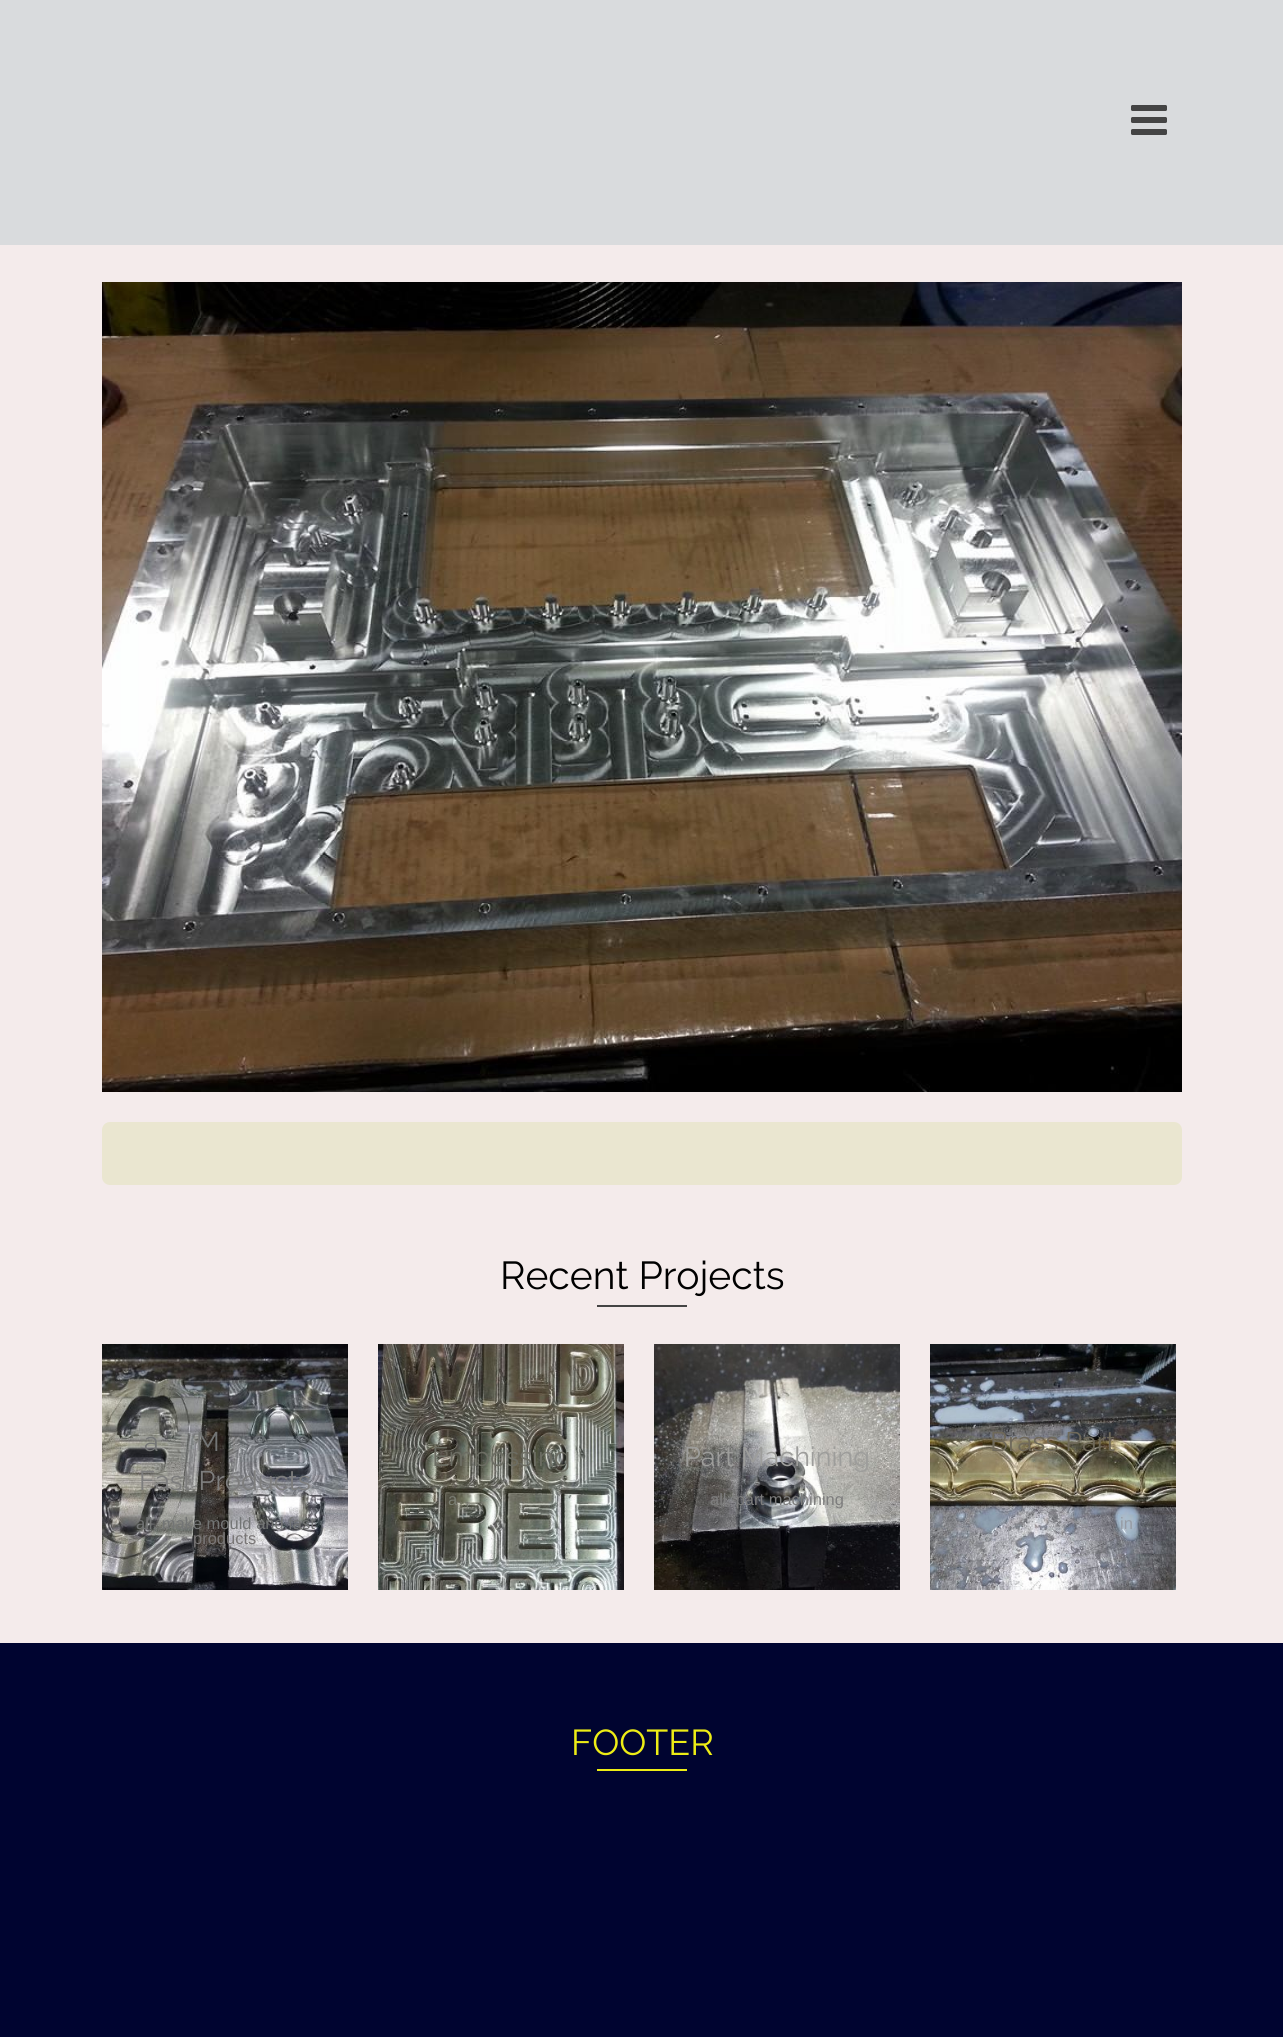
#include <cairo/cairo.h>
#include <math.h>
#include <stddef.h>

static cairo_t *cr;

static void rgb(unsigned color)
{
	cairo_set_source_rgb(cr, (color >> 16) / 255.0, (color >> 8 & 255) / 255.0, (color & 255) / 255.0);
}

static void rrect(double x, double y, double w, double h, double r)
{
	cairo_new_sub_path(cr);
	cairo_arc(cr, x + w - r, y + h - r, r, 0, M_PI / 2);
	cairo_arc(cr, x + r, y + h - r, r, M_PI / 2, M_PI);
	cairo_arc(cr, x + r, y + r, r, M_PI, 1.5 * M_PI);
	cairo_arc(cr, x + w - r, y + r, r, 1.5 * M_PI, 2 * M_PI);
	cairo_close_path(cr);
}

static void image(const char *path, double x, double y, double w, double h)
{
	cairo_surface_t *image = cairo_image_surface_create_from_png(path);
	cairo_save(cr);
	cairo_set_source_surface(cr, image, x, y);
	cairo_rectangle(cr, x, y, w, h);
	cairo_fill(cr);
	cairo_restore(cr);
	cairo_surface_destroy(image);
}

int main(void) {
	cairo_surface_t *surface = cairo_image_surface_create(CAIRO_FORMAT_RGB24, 1283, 2037);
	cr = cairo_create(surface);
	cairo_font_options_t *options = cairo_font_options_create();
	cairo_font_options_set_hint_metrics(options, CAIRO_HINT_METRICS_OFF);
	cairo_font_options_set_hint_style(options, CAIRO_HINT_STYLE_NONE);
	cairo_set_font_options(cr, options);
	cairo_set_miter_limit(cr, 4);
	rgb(0xd9dbdd);
	cairo_paint(cr);
	image("img/1.png", 1131, 105, 36, 30);
	rgb(0xf4ebeb);
	cairo_rectangle(cr, 0, 245, 1283, 1398);
	cairo_fill(cr);
	image("img/2.png", 102, 282, 1080, 810);
	rgb(0xeae6d0);
	rrect(102, 1122, 1080, 63, 8);
	cairo_fill(cr);
	rgb(0x444444);
	cairo_rectangle(cr, 597, 1305, 90, 2);
	cairo_fill(cr);
	image("img/3.png", 102, 1344, 246, 246);
	image("img/4.png", 378, 1344, 246, 246);
	image("img/5.png", 654, 1344, 246, 246);
	image("img/6.png", 930, 1344, 246, 246);
	rgb(0x000430);
	cairo_rectangle(cr, 0, 1643, 1283, 394);
	cairo_fill(cr);
	rgb(0xeded15);
	cairo_rectangle(cr, 597, 1769, 90, 2);
	cairo_fill(cr);
	cairo_select_font_face(cr, "Raleway", CAIRO_FONT_SLANT_NORMAL, CAIRO_FONT_WEIGHT_NORMAL);
	cairo_set_font_size(cr, 39);
	rgb(0x000000);
	cairo_move_to(cr, 500, 1289);
	cairo_show_text(cr, "Recent Projects");
	cairo_set_font_size(cr, 27);
	rgb(0x737575);
	cairo_move_to(cr, 144, 1451);
	cairo_show_text(cr, "a");
	cairo_move_to(cr, 196, 1451);
	cairo_show_text(cr, "M");
	rgb(0x7d7d7d);
	cairo_move_to(cr, 139, 1490);
	cairo_show_text(cr, "Fast Products");
	cairo_select_font_face(cr, "Liberation Sans", CAIRO_FONT_SLANT_NORMAL, CAIRO_FONT_WEIGHT_NORMAL);
	cairo_set_font_size(cr, 16.5);
	rgb(0x737575);
	cairo_move_to(cr, 136, 1529);
	cairo_show_text(cr, "all, make mould and fast");
	rgb(0x797676);
	cairo_move_to(cr, 193, 1544);
	cairo_show_text(cr, "products");
	cairo_select_font_face(cr, "Raleway", CAIRO_FONT_SLANT_NORMAL, CAIRO_FONT_WEIGHT_NORMAL);
	cairo_set_font_size(cr, 27);
	rgb(0x6c6d63);
	cairo_move_to(cr, 432, 1466);
	cairo_show_text(cr, "Embossing");
	cairo_select_font_face(cr, "Liberation Sans", CAIRO_FONT_SLANT_NORMAL, CAIRO_FONT_WEIGHT_NORMAL);
	cairo_set_font_size(cr, 16.5);
	rgb(0x7b7e73);
	cairo_move_to(cr, 448, 1505);
	cairo_show_text(cr, "a");
	cairo_move_to(cr, 465, 1505);
	cairo_show_text(cr, ",");
	cairo_select_font_face(cr, "Raleway", CAIRO_FONT_SLANT_NORMAL, CAIRO_FONT_WEIGHT_NORMAL);
	cairo_set_font_size(cr, 27);
	rgb(0x9d9d9b);
	cairo_move_to(cr, 684, 1466);
	cairo_show_text(cr, "Part Machining");
	cairo_select_font_face(cr, "Liberation Sans", CAIRO_FONT_SLANT_NORMAL, CAIRO_FONT_WEIGHT_NORMAL);
	cairo_set_font_size(cr, 16.5);
	rgb(0x7d7d7d);
	cairo_move_to(cr, 710, 1505);
	cairo_show_text(cr, "all, part machining");
	cairo_select_font_face(cr, "Raleway", CAIRO_FONT_SLANT_NORMAL, CAIRO_FONT_WEIGHT_NORMAL);
	cairo_set_font_size(cr, 27);
	rgb(0x6f695a);
	cairo_move_to(cr, 990, 1451);
	cairo_show_text(cr, "Brass Part");
	cairo_select_font_face(cr, "Liberation Sans", CAIRO_FONT_SLANT_NORMAL, CAIRO_FONT_WEIGHT_NORMAL);
	cairo_set_font_size(cr, 16.5);
	rgb(0x969ba4);
	cairo_move_to(cr, 1120, 1529);
	cairo_show_text(cr, "in");
	cairo_select_font_face(cr, "Raleway", CAIRO_FONT_SLANT_NORMAL, CAIRO_FONT_WEIGHT_NORMAL);
	cairo_set_font_size(cr, 36);
	rgb(0xeded15);
	cairo_move_to(cr, 571, 1755);
	cairo_show_text(cr, "FOOTER");
	cairo_surface_write_to_png(surface, "page.png");
	cairo_font_options_destroy(options);
	cairo_destroy(cr);
	cairo_surface_destroy(surface);
	return 0;
}
